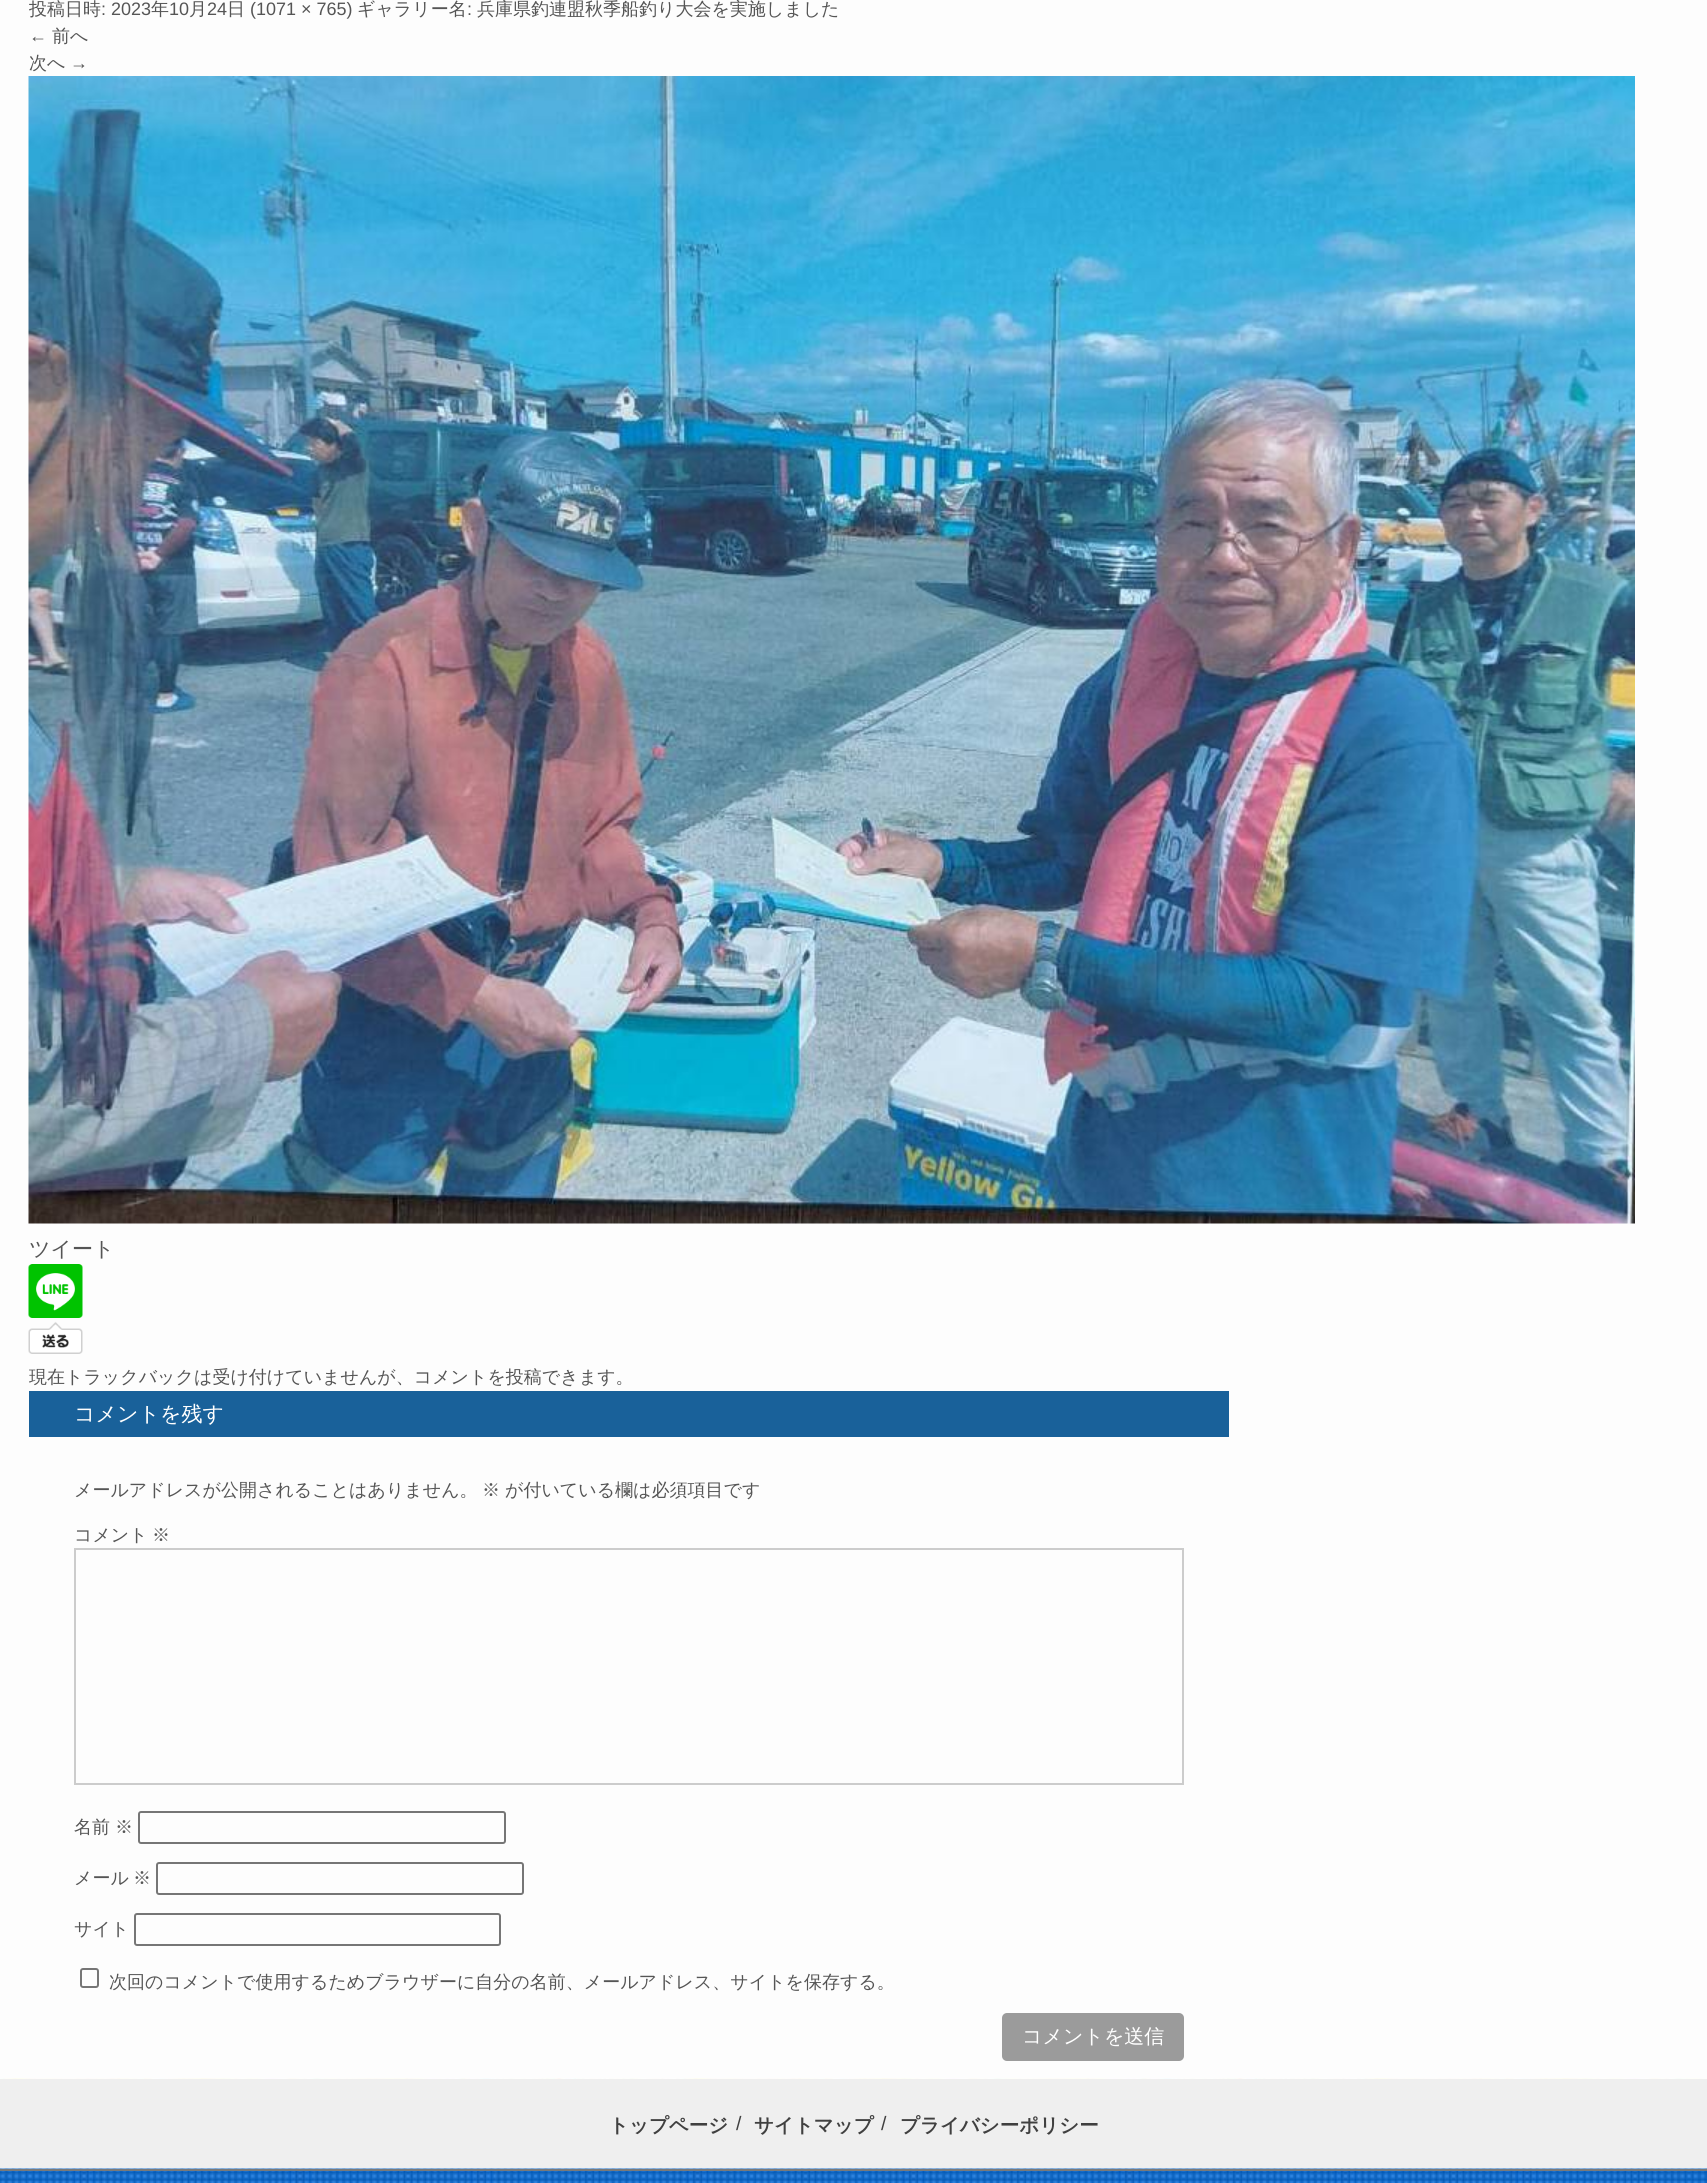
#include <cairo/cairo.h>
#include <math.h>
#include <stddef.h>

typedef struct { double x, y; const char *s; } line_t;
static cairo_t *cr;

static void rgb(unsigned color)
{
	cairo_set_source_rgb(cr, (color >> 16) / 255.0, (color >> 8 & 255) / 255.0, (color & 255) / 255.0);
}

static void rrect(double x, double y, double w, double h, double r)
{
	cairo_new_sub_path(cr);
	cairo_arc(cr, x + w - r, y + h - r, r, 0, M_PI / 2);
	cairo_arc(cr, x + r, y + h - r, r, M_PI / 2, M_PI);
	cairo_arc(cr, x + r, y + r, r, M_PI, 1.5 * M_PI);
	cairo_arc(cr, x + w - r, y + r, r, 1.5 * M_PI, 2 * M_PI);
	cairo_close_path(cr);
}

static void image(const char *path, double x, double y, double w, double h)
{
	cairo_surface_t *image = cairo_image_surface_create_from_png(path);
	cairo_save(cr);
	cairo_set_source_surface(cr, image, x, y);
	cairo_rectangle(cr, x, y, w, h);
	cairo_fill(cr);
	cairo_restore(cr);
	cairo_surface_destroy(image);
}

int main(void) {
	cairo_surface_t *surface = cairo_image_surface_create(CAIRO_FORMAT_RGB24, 1707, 2183);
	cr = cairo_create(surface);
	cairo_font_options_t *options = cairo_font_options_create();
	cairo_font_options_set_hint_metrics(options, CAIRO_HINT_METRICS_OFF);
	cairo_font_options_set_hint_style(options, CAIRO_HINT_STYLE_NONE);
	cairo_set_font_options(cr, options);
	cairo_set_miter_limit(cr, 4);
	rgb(0xfdfdfd);
	cairo_paint(cr);
	image("img/1.png", 28, 76, 1607, 1148);
	image("img/2.png", 28, 1264, 55, 90);
	rgb(0x19619a);
	cairo_rectangle(cr, 29, 1391, 1200, 46);
	cairo_fill(cr);
	cairo_rectangle(cr, 75, 1549, 1108, 235);
	rgb(0xcccccc);
	cairo_stroke(cr);
	rrect(139, 1812, 366, 31, 2);
	rgb(0x767676);
	cairo_stroke(cr);
	rrect(157, 1863, 366, 31, 2);
	cairo_stroke(cr);
	rrect(135, 1914, 365, 31, 2);
	cairo_stroke(cr);
	rrect(81, 1969, 17, 18, 2);
	cairo_stroke(cr);
	rgb(0x9b9b9b);
	rrect(1002, 2013, 182, 48, 5);
	cairo_fill(cr);
	image("img/3.png", 0, 2078, 1707, 1);
	rgb(0xefefef);
	cairo_rectangle(cr, 0, 2079, 1707, 90);
	cairo_fill(cr);
	image("img/4.png", 0, 2168, 1707, 15);
	rgb(0x797979);
	cairo_rectangle(cr, 0, 2169, 1707, 2);
	cairo_fill(cr);
	cairo_select_font_face(cr, "WenQuanYi Zen Hei Medium", CAIRO_FONT_SLANT_NORMAL, CAIRO_FONT_WEIGHT_NORMAL);
	cairo_set_font_size(cr, 18);
	rgb(0x555555);
	cairo_move_to(cr, 29, 15);
	cairo_show_text(cr, "投稿日時");
	cairo_select_font_face(cr, "Liberation Sans", CAIRO_FONT_SLANT_NORMAL, CAIRO_FONT_WEIGHT_NORMAL);
	cairo_move_to(cr, 101, 15);
	cairo_show_text(cr, ": 2023");
	cairo_select_font_face(cr, "WenQuanYi Zen Hei Medium", CAIRO_FONT_SLANT_NORMAL, CAIRO_FONT_WEIGHT_NORMAL);
	cairo_move_to(cr, 151, 15);
	cairo_show_text(cr, "年");
	cairo_select_font_face(cr, "Liberation Sans", CAIRO_FONT_SLANT_NORMAL, CAIRO_FONT_WEIGHT_NORMAL);
	cairo_move_to(cr, 169, 15);
	cairo_show_text(cr, "10");
	cairo_select_font_face(cr, "WenQuanYi Zen Hei Medium", CAIRO_FONT_SLANT_NORMAL, CAIRO_FONT_WEIGHT_NORMAL);
	cairo_move_to(cr, 189, 15);
	cairo_show_text(cr, "月");
	cairo_select_font_face(cr, "Liberation Sans", CAIRO_FONT_SLANT_NORMAL, CAIRO_FONT_WEIGHT_NORMAL);
	cairo_move_to(cr, 207, 15);
	cairo_show_text(cr, "24");
	cairo_select_font_face(cr, "WenQuanYi Zen Hei Medium", CAIRO_FONT_SLANT_NORMAL, CAIRO_FONT_WEIGHT_NORMAL);
	cairo_move_to(cr, 227, 15);
	cairo_show_text(cr, "日");
	cairo_select_font_face(cr, "Liberation Sans", CAIRO_FONT_SLANT_NORMAL, CAIRO_FONT_WEIGHT_NORMAL);
	cairo_move_to(cr, 250, 15);
	cairo_show_text(cr, "(1071 × 765)");
	cairo_select_font_face(cr, "WenQuanYi Zen Hei Medium", CAIRO_FONT_SLANT_NORMAL, CAIRO_FONT_WEIGHT_NORMAL);
	cairo_move_to(cr, 357, 15);
	cairo_show_text(cr, "ギャラリー名");
	cairo_select_font_face(cr, "Liberation Sans", CAIRO_FONT_SLANT_NORMAL, CAIRO_FONT_WEIGHT_NORMAL);
	cairo_move_to(cr, 467, 15);
	cairo_show_text(cr, ":");
	cairo_select_font_face(cr, "WenQuanYi Zen Hei Medium", CAIRO_FONT_SLANT_NORMAL, CAIRO_FONT_WEIGHT_NORMAL);
	cairo_move_to(cr, 477, 15);
	cairo_show_text(cr, "兵庫県釣連盟秋季船釣り大会を実施しました");
	cairo_select_font_face(cr, "Liberation Sans", CAIRO_FONT_SLANT_NORMAL, CAIRO_FONT_WEIGHT_NORMAL);
	cairo_move_to(cr, 29, 42);
	cairo_show_text(cr, "←");
	cairo_select_font_face(cr, "WenQuanYi Zen Hei Medium", CAIRO_FONT_SLANT_NORMAL, CAIRO_FONT_WEIGHT_NORMAL);
	cairo_move_to(cr, 52, 42);
	cairo_show_text(cr, "前へ");
	cairo_move_to(cr, 29, 69);
	cairo_show_text(cr, "次へ");
	cairo_select_font_face(cr, "Liberation Sans", CAIRO_FONT_SLANT_NORMAL, CAIRO_FONT_WEIGHT_NORMAL);
	cairo_move_to(cr, 70, 69);
	cairo_show_text(cr, "→");
	cairo_select_font_face(cr, "WenQuanYi Zen Hei Medium", CAIRO_FONT_SLANT_NORMAL, CAIRO_FONT_WEIGHT_NORMAL);
	cairo_set_font_size(cr, 21);
	cairo_move_to(cr, 29, 1256);
	cairo_show_text(cr, "ツイート");
	cairo_set_font_size(cr, 18);
	cairo_move_to(cr, 29, 1383);
	cairo_show_text(cr, "現在トラックバックは受け付けていませんが、コメントを投稿できます。");
	cairo_set_font_size(cr, 21);
	rgb(0xffffff);
	cairo_move_to(cr, 74, 1421);
	cairo_show_text(cr, "コメントを残す");
	cairo_set_font_size(cr, 18);
	rgb(0x555555);
	{
		static const line_t items[] = {
			{74, 1496, "メールアドレスが公開されることはありません。"},
			{482, 1496, "※"},
			{505, 1496, "が付いている欄は必須項目です"},
			{74, 1541, "コメント"},
			{152, 1541, "※"},
			{74, 1833, "名前"},
			{115, 1833, "※"},
			{74, 1884, "メール"},
			{133, 1884, "※"},
			{74, 1935, "サイト"},
			{109, 1988, "次回のコメントで使用するためブラウザーに自分の名前、メールアドレス、サイトを保存する。"},
		};
		for (size_t i = 0; i < sizeof items / sizeof *items; i++) {
			cairo_move_to(cr, items[i].x, items[i].y);
			cairo_show_text(cr, items[i].s);
		}
	}
	cairo_set_font_size(cr, 20);
	rgb(0xffffff);
	cairo_move_to(cr, 1022, 2043);
	cairo_show_text(cr, "コメントを送信");
	cairo_select_font_face(cr, "WenQuanYi Zen Hei", CAIRO_FONT_SLANT_NORMAL, CAIRO_FONT_WEIGHT_BOLD);
	cairo_set_font_size(cr, 19.5);
	rgb(0x404040);
	cairo_move_to(cr, 609, 2132);
	cairo_show_text(cr, "トップページ");
	cairo_select_font_face(cr, "Liberation Sans", CAIRO_FONT_SLANT_NORMAL, CAIRO_FONT_WEIGHT_NORMAL);
	cairo_move_to(cr, 736, 2130);
	cairo_show_text(cr, "/");
	cairo_select_font_face(cr, "WenQuanYi Zen Hei", CAIRO_FONT_SLANT_NORMAL, CAIRO_FONT_WEIGHT_BOLD);
	cairo_move_to(cr, 754, 2132);
	cairo_show_text(cr, "サイトマップ");
	cairo_select_font_face(cr, "Liberation Sans", CAIRO_FONT_SLANT_NORMAL, CAIRO_FONT_WEIGHT_NORMAL);
	cairo_move_to(cr, 881, 2130);
	cairo_show_text(cr, "/");
	cairo_select_font_face(cr, "WenQuanYi Zen Hei", CAIRO_FONT_SLANT_NORMAL, CAIRO_FONT_WEIGHT_BOLD);
	cairo_move_to(cr, 900, 2132);
	cairo_show_text(cr, "プライバシーポリシー");
	cairo_surface_write_to_png(surface, "page.png");
	cairo_font_options_destroy(options);
	cairo_destroy(cr);
	cairo_surface_destroy(surface);
	return 0;
}
